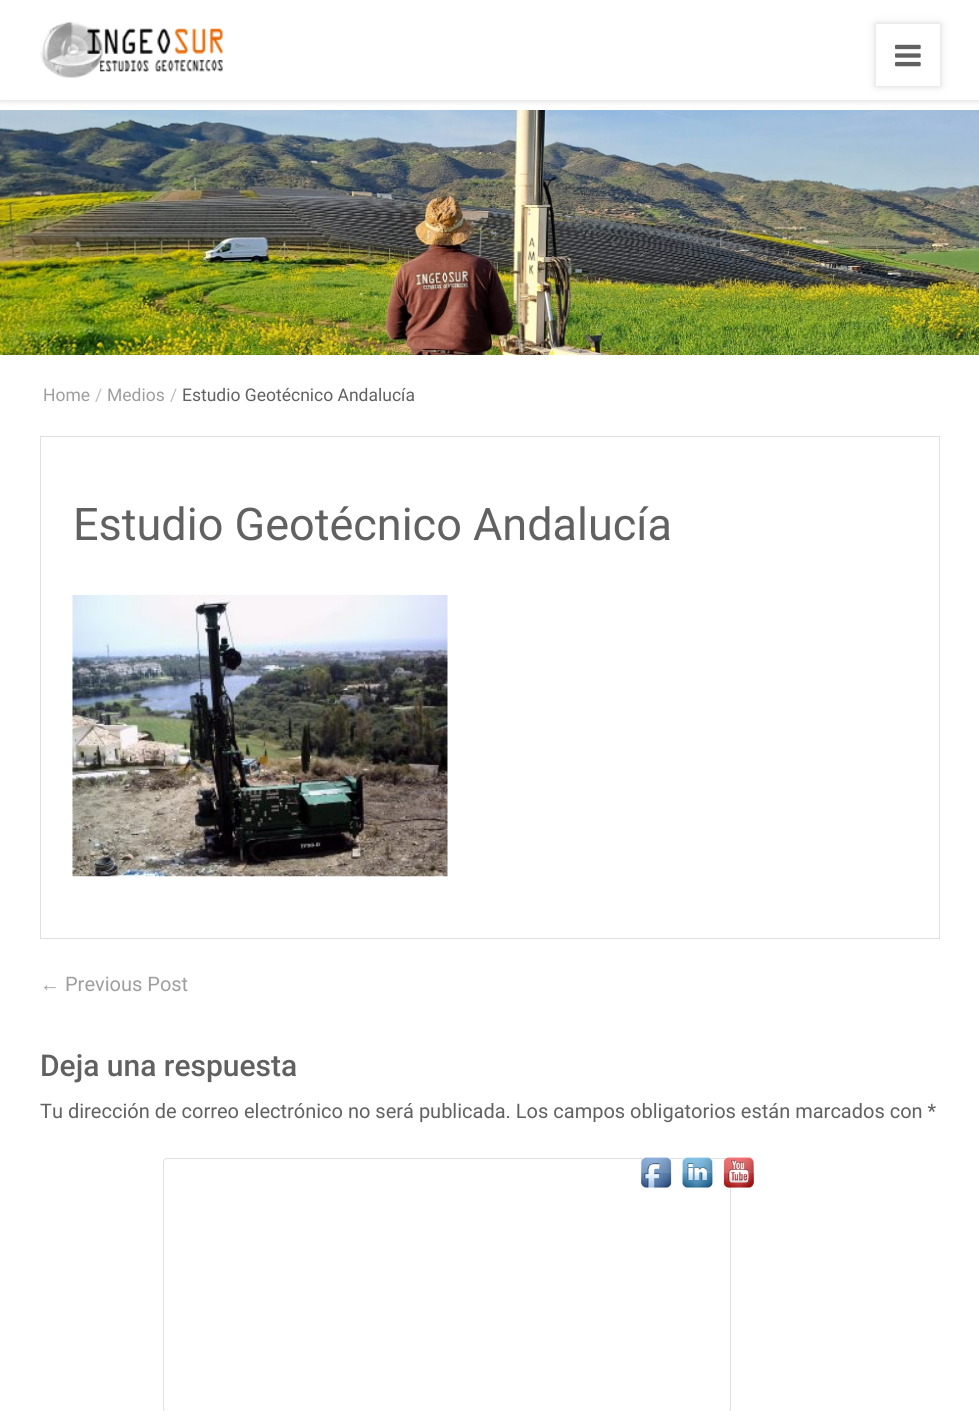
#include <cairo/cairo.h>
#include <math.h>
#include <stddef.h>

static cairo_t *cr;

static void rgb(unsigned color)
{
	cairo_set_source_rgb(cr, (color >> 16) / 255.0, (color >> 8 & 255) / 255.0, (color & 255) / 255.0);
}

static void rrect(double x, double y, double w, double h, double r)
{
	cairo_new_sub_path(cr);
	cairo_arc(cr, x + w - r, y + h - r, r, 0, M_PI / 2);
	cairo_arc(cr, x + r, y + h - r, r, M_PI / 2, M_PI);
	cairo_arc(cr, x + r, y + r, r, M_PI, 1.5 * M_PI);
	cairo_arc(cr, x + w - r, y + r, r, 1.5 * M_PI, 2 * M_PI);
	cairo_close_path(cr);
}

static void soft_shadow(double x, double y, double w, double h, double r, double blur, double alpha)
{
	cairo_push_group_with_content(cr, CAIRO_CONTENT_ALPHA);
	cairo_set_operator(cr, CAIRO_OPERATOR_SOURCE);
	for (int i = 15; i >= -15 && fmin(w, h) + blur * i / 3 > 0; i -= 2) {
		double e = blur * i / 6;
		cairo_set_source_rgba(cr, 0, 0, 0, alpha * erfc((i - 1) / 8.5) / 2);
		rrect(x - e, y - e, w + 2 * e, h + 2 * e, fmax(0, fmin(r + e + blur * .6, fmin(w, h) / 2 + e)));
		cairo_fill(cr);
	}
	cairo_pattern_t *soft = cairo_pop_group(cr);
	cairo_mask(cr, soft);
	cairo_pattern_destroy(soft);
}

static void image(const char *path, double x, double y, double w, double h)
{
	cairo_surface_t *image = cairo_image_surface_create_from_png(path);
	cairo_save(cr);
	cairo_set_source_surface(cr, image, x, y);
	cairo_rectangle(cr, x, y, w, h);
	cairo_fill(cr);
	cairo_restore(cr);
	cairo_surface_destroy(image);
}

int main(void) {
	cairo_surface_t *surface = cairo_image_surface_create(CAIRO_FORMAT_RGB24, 979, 1411);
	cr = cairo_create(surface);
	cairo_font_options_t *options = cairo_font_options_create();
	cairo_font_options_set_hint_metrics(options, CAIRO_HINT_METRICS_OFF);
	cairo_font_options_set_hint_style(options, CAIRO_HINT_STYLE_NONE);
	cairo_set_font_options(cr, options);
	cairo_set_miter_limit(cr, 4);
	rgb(0xffffff);
	cairo_paint(cr);
	image("img/3.png", 0, 110, 979, 245);
	cairo_save(cr);
	cairo_rectangle(cr, 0, 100, 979, 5);
	cairo_clip(cr);
	rgb(0x212121);
	soft_shadow(0, 0, 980, 100, 0, 4, 0.2);
	cairo_restore(cr);
	image("img/1.png", 40, 22, 183, 56);
	rgb(0x212121);
	soft_shadow(876, 24, 64, 62, 0, 4, 0.2);
	rgb(0xffffff);
	cairo_rectangle(cr, 876, 24, 64, 62);
	cairo_fill(cr);
	image("img/2.png", 895, 44, 26, 23);
	cairo_rectangle(cr, 40.5, 436.5, 899, 502);
	rgb(0xe0e0e0);
	cairo_set_line_width(cr, 1);
	cairo_stroke(cr);
	image("img/4.png", 72, 595, 376, 282);
	rrect(163.5, 1158.5, 567, 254, 3.5);
	cairo_stroke(cr);
	image("img/5.png", 641, 1157, 31, 31);
	image("img/6.png", 682, 1157, 31, 31);
	image("img/7.png", 723, 1157, 31, 31);
	cairo_select_font_face(cr, "Roboto", CAIRO_FONT_SLANT_NORMAL, CAIRO_FONT_WEIGHT_NORMAL);
	cairo_set_font_size(cr, 17.5);
	rgb(0x9e9e9e);
	cairo_move_to(cr, 43, 401);
	cairo_show_text(cr, "Home");
	rgb(0xbdbdbd);
	cairo_move_to(cr, 95, 401);
	cairo_show_text(cr, "/");
	rgb(0x9e9e9e);
	cairo_move_to(cr, 107, 401);
	cairo_show_text(cr, "Medios");
	rgb(0xbdbdbd);
	cairo_move_to(cr, 170, 401);
	cairo_show_text(cr, "/");
	rgb(0x616161);
	cairo_move_to(cr, 182, 401);
	cairo_show_text(cr, "Estudio Geotécnico Andalucía");
	cairo_set_font_size(cr, 45);
	cairo_move_to(cr, 73, 540);
	cairo_show_text(cr, "Estudio Geotécnico Andalucía");
	cairo_select_font_face(cr, "Liberation Sans", CAIRO_FONT_SLANT_NORMAL, CAIRO_FONT_WEIGHT_NORMAL);
	cairo_set_font_size(cr, 20);
	rgb(0x9e9e9e);
	cairo_move_to(cr, 40, 991);
	cairo_show_text(cr, "←");
	cairo_select_font_face(cr, "Roboto", CAIRO_FONT_SLANT_NORMAL, CAIRO_FONT_WEIGHT_NORMAL);
	cairo_move_to(cr, 65, 991);
	cairo_show_text(cr, "Previous Post");
	cairo_select_font_face(cr, "Roboto Medium", CAIRO_FONT_SLANT_NORMAL, CAIRO_FONT_WEIGHT_NORMAL);
	cairo_set_font_size(cr, 30);
	rgb(0x616161);
	cairo_move_to(cr, 40, 1076);
	cairo_show_text(cr, "Deja una respuesta");
	cairo_select_font_face(cr, "Roboto", CAIRO_FONT_SLANT_NORMAL, CAIRO_FONT_WEIGHT_NORMAL);
	cairo_set_font_size(cr, 20);
	cairo_move_to(cr, 40, 1118);
	cairo_show_text(cr, "Tu dirección de correo electrónico no será publicada. Los campos obligatorios están marcados con *");
	cairo_surface_write_to_png(surface, "page.png");
	cairo_font_options_destroy(options);
	cairo_destroy(cr);
	cairo_surface_destroy(surface);
	return 0;
}
